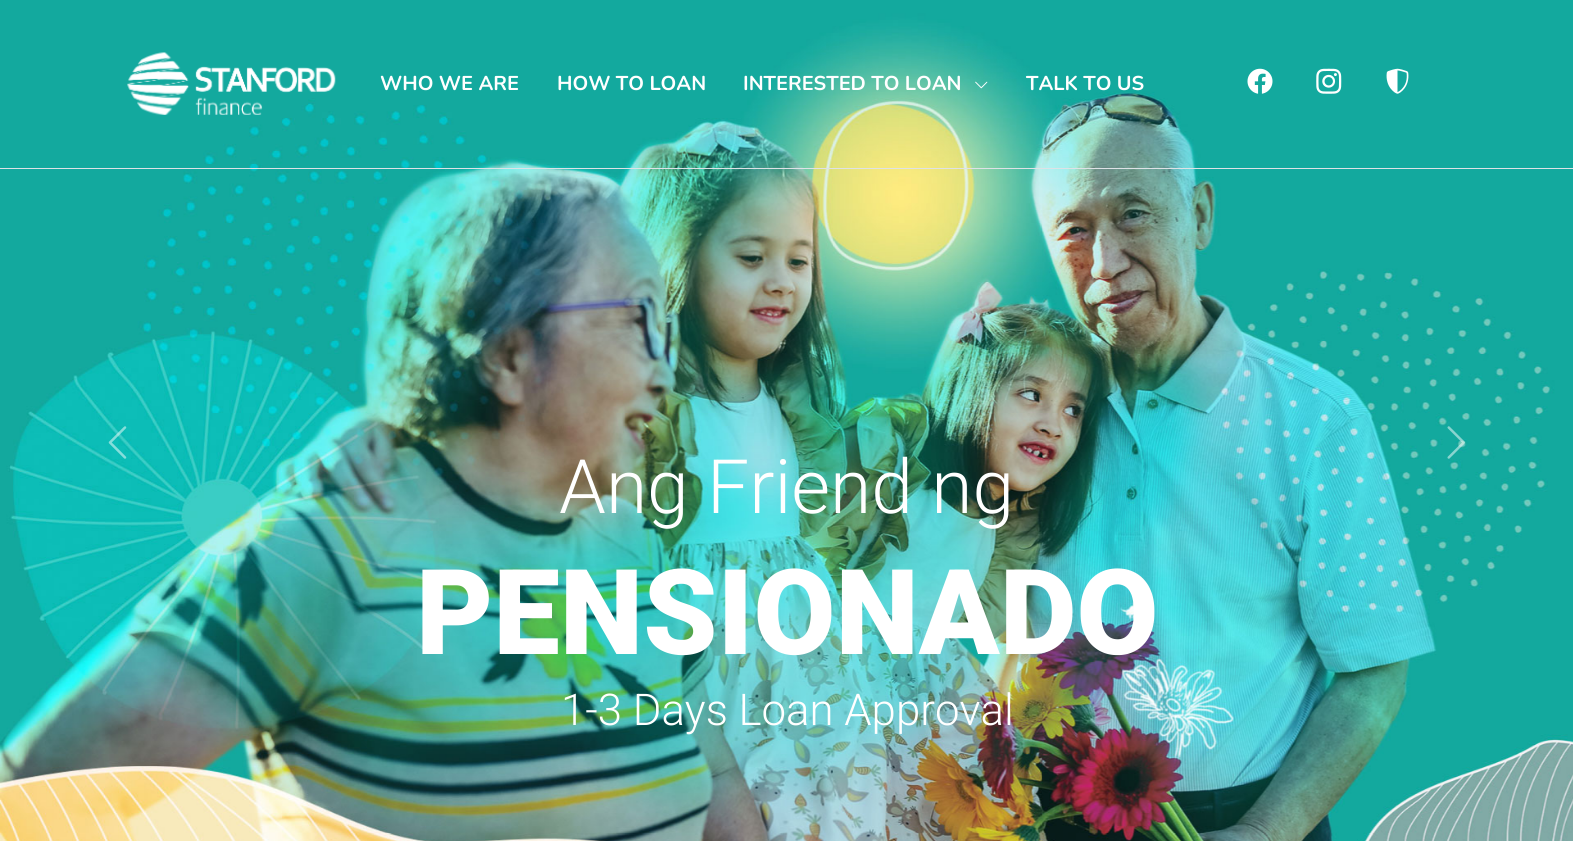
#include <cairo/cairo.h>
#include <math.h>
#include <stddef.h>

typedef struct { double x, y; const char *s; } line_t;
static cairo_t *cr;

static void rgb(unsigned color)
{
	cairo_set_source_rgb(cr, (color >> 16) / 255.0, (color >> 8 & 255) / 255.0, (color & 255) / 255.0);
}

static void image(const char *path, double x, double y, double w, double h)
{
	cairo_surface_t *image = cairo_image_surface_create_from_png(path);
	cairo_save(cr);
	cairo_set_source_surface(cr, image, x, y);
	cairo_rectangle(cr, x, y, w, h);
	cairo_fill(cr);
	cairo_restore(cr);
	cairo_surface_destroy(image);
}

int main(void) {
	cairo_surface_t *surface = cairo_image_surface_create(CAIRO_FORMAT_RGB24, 1573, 841);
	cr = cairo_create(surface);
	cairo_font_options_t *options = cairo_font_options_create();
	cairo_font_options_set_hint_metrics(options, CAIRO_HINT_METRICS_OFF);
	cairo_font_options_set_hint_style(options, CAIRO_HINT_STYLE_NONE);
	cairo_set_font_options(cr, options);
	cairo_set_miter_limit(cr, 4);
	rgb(0xffffff);
	cairo_paint(cr);
	image("img/8.png", 0, 0, 1573, 841);
	rgb(0xdee2e6);
	cairo_rectangle(cr, 0, 168, 1573, 1);
	cairo_fill(cr);
	image("img/1.png", 127, 52, 209, 63);
	image("img/2.png", 975, 81, 13, 8);
	image("img/3.png", 1247, 68, 26, 26);
	image("img/4.png", 1316, 68, 26, 26);
	image("img/5.png", 1386, 68, 23, 26);
	image("img/6.png", 108, 426, 19, 33);
	image("img/7.png", 1447, 426, 18, 33);
	cairo_select_font_face(cr, "Nunito", CAIRO_FONT_SLANT_NORMAL, CAIRO_FONT_WEIGHT_BOLD);
	cairo_set_font_size(cr, 20);
	rgb(0xffffff);
	{
		static const line_t items[] = {
			{380, 90, "WHO WE ARE"},
			{557, 90, "HOW TO LOAN"},
			{743, 90, "INTERESTED TO LOAN"},
			{1026, 90, "TALK TO US"},
		};
		for (size_t i = 0; i < sizeof items / sizeof *items; i++) {
			cairo_move_to(cr, items[i].x, items[i].y);
			cairo_show_text(cr, items[i].s);
		}
	}
	cairo_select_font_face(cr, "Roboto Light", CAIRO_FONT_SLANT_NORMAL, CAIRO_FONT_WEIGHT_NORMAL);
	cairo_set_font_size(cr, 75);
	cairo_move_to(cr, 559, 513);
	cairo_show_text(cr, "Ang Friend ng");
	cairo_select_font_face(cr, "Roboto Black", CAIRO_FONT_SLANT_NORMAL, CAIRO_FONT_WEIGHT_NORMAL);
	cairo_set_font_size(cr, 118.75);
	cairo_move_to(cr, 416, 654);
	cairo_show_text(cr, "PENSIONADO");
	cairo_select_font_face(cr, "Roboto Light", CAIRO_FONT_SLANT_NORMAL, CAIRO_FONT_WEIGHT_NORMAL);
	cairo_set_font_size(cr, 43.75);
	cairo_move_to(cr, 561, 725);
	cairo_show_text(cr, "1-3 Days Loan Approval");
	cairo_surface_write_to_png(surface, "page.png");
	cairo_font_options_destroy(options);
	cairo_destroy(cr);
	cairo_surface_destroy(surface);
	return 0;
}
